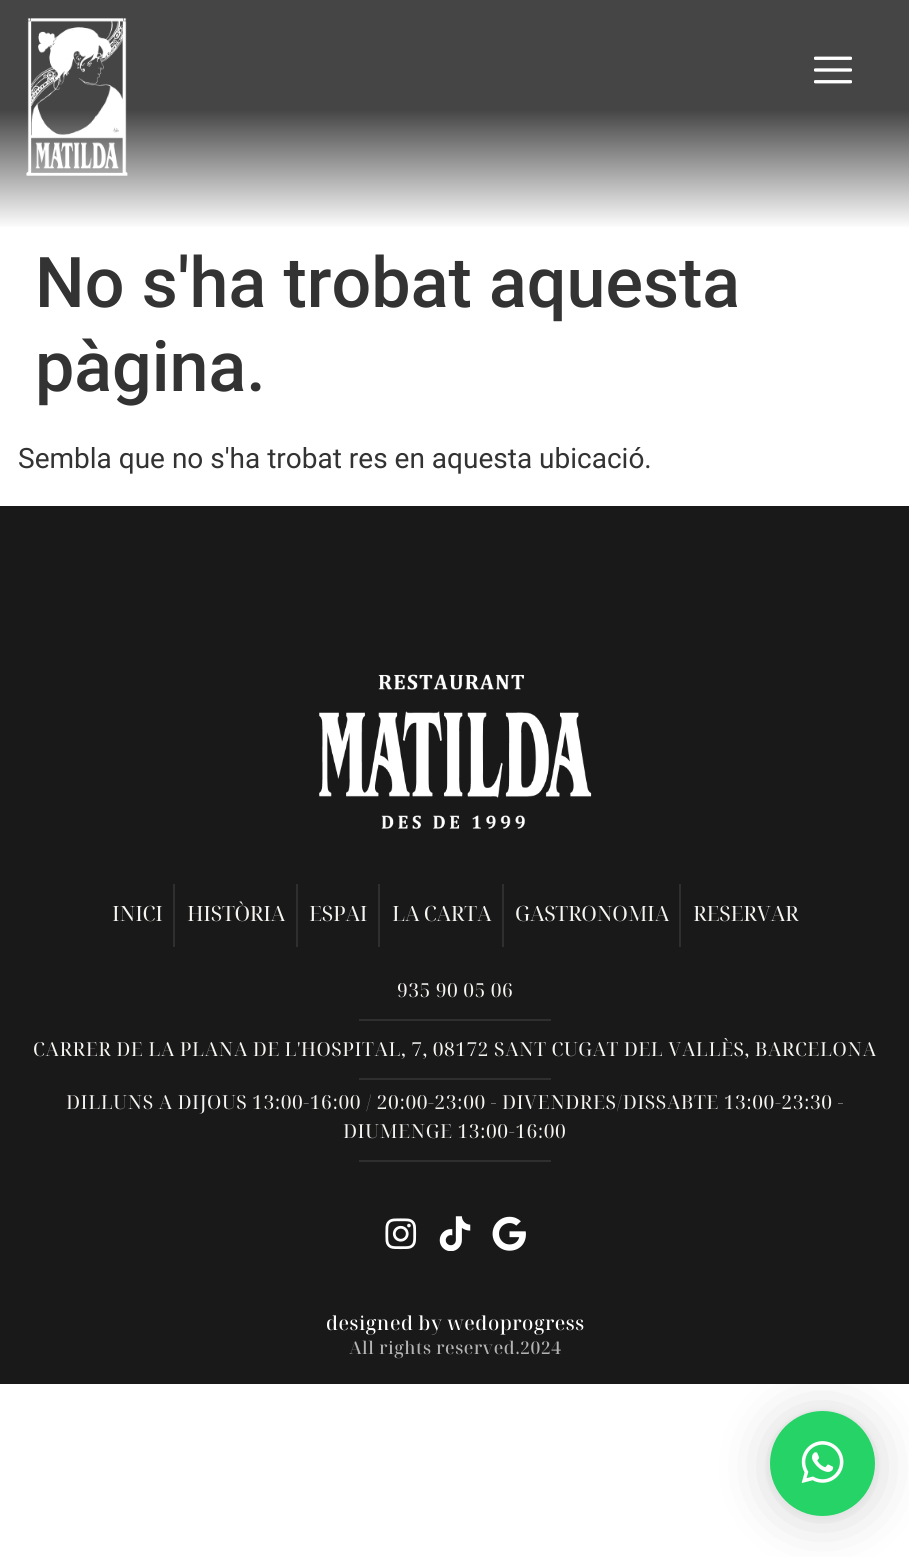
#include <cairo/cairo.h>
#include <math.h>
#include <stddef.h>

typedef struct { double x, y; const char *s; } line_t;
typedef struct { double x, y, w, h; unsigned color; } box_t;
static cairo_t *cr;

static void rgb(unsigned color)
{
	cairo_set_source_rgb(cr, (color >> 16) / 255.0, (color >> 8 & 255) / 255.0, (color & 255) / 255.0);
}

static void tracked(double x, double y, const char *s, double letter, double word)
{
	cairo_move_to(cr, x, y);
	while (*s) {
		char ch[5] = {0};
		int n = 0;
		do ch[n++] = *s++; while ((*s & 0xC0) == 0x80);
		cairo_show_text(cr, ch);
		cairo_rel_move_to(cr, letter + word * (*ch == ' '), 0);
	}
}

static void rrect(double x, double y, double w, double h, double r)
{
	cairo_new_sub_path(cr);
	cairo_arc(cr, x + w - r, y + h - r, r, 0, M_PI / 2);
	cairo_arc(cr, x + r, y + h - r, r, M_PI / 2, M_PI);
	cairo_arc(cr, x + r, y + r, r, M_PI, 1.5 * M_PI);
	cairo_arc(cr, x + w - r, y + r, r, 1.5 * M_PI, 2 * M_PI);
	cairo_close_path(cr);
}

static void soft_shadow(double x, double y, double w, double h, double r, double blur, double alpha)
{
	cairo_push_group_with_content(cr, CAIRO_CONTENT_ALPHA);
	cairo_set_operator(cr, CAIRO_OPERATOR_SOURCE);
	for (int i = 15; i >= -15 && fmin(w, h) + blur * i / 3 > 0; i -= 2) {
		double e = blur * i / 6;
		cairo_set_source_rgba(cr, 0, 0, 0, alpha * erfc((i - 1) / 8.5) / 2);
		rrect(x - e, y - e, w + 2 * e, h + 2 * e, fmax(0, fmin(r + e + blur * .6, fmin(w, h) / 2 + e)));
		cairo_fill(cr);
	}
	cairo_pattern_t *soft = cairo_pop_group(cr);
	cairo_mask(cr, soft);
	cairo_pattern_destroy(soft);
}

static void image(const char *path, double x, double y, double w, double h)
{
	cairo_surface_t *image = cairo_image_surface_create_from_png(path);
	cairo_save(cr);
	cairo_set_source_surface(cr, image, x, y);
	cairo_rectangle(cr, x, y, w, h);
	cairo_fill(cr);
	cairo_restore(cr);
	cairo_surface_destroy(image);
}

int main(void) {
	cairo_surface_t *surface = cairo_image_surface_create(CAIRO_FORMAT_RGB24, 909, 1557);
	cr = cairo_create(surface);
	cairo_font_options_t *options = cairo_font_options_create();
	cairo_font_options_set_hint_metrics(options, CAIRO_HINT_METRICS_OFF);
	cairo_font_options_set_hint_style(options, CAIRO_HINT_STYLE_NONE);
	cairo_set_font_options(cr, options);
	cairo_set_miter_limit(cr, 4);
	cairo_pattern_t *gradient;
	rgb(0xffffff);
	cairo_paint(cr);
	gradient = cairo_pattern_create_linear(455, 0, 455, 229);
	cairo_pattern_add_color_stop_rgba(gradient, 0.48, 0.271, 0.271, 0.271, 1);
	cairo_pattern_add_color_stop_rgba(gradient, 1, 1, 1, 1, 1);
	cairo_set_source(cr, gradient);
	cairo_pattern_destroy(gradient);
	cairo_rectangle(cr, 0, 0, 909, 227);
	cairo_fill(cr);
	image("img/1.png", 26, 18, 102, 158);
	image("img/2.png", 814, 56, 38, 28);
	rgb(0x191919);
	cairo_rectangle(cr, 0, 506, 909, 878);
	cairo_fill(cr);
	image("img/3.png", 319, 674, 273, 156);
	{
		static const box_t items[] = {
			{173, 884, 2, 63, 0x2f2f2f},
			{296, 884, 2, 63, 0x2f2f2f},
			{378, 884, 2, 63, 0x2f2f2f},
			{502, 884, 2, 63, 0x2f2f2f},
			{679, 884, 2, 63, 0x2f2f2f},
			{359, 1019, 192, 2, 0x2f2f2f},
			{359, 1078, 192, 2, 0x2f2f2f},
			{359, 1160, 192, 2, 0x2f2f2f},
		};
		for (size_t i = 0; i < sizeof items / sizeof *items; i++) {
			rgb(items[i].color);
			cairo_rectangle(cr, items[i].x, items[i].y, items[i].w, items[i].h);
			cairo_fill(cr);
		}
	}
	image("img/4.png", 385, 1218, 32, 32);
	image("img/5.png", 439, 1216, 32, 35);
	image("img/6.png", 492, 1216, 34, 35);
	rgb(0x000000);
	soft_shadow(770, 1414, 105, 105, 52.5, 28, 0.16);
	soft_shadow(770, 1412, 105, 105, 52.5, 5, 0.06);
	rgb(0x25d366);
	cairo_arc(cr, 822.5, 1463.5, 52.5, 0, 2 * M_PI);
	cairo_fill(cr);
	image("img/7.png", 801, 1441, 43, 43);
	cairo_select_font_face(cr, "Roboto Medium", CAIRO_FONT_SLANT_NORMAL, CAIRO_FONT_WEIGHT_NORMAL);
	cairo_set_font_size(cr, 70);
	rgb(0x333333);
	cairo_move_to(cr, 35, 307);
	cairo_show_text(cr, "No s'ha trobat aquesta");
	cairo_move_to(cr, 35, 391);
	cairo_show_text(cr, "pàgina.");
	cairo_select_font_face(cr, "Roboto", CAIRO_FONT_SLANT_NORMAL, CAIRO_FONT_WEIGHT_NORMAL);
	cairo_set_font_size(cr, 28);
	cairo_move_to(cr, 18, 468);
	cairo_show_text(cr, "Sembla que no s'ha trobat res en aquesta ubicació.");
	cairo_select_font_face(cr, "Noto Serif Display", CAIRO_FONT_SLANT_NORMAL, CAIRO_FONT_WEIGHT_NORMAL);
	cairo_set_font_size(cr, 21);
	rgb(0xf6f4f0);
	{
		static const line_t items[] = {
			{112, 921, "INICI"},
			{187, 921, "HISTÒRIA"},
			{309, 921, "ESPAI"},
			{392, 921, "LA CARTA"},
			{515, 921, "GASTRONOMIA"},
			{693, 921, "RESERVAR"},
		};
		for (size_t i = 0; i < sizeof items / sizeof *items; i++) {
			tracked(items[i].x, items[i].y, items[i].s, -0.3, 0);
		}
	}
	cairo_set_font_size(cr, 19.25);
	{
		static const line_t items[] = {
			{397, 997, "935 90 05 06"},
			{33, 1056, "CARRER DE LA PLANA DE L'HOSPITAL, 7, 08172 SANT CUGAT DEL VALLÈS, BARCELONA"},
			{66, 1109, "DILLUNS A DIJOUS 13:00-16:00 / 20:00-23:00 - DIVENDRES/DISSABTE 13:00-23:30 -"},
			{343, 1138, "DIUMENGE 13:00-16:00"},
		};
		for (size_t i = 0; i < sizeof items / sizeof *items; i++) {
			tracked(items[i].x, items[i].y, items[i].s, 0.53, 0);
		}
	}
	cairo_select_font_face(cr, "Noto Serif Display Medium", CAIRO_FONT_SLANT_NORMAL, CAIRO_FONT_WEIGHT_NORMAL);
	rgb(0xffffff);
	tracked(326, 1330, "designed by wedoprogress", 0.53, 0);
	cairo_set_font_size(cr, 17.5);
	rgb(0xb3b3b3);
	tracked(349, 1354, "All rights reserved.2024", 0.53, 0);
	cairo_surface_write_to_png(surface, "page.png");
	cairo_font_options_destroy(options);
	cairo_destroy(cr);
	cairo_surface_destroy(surface);
	return 0;
}
